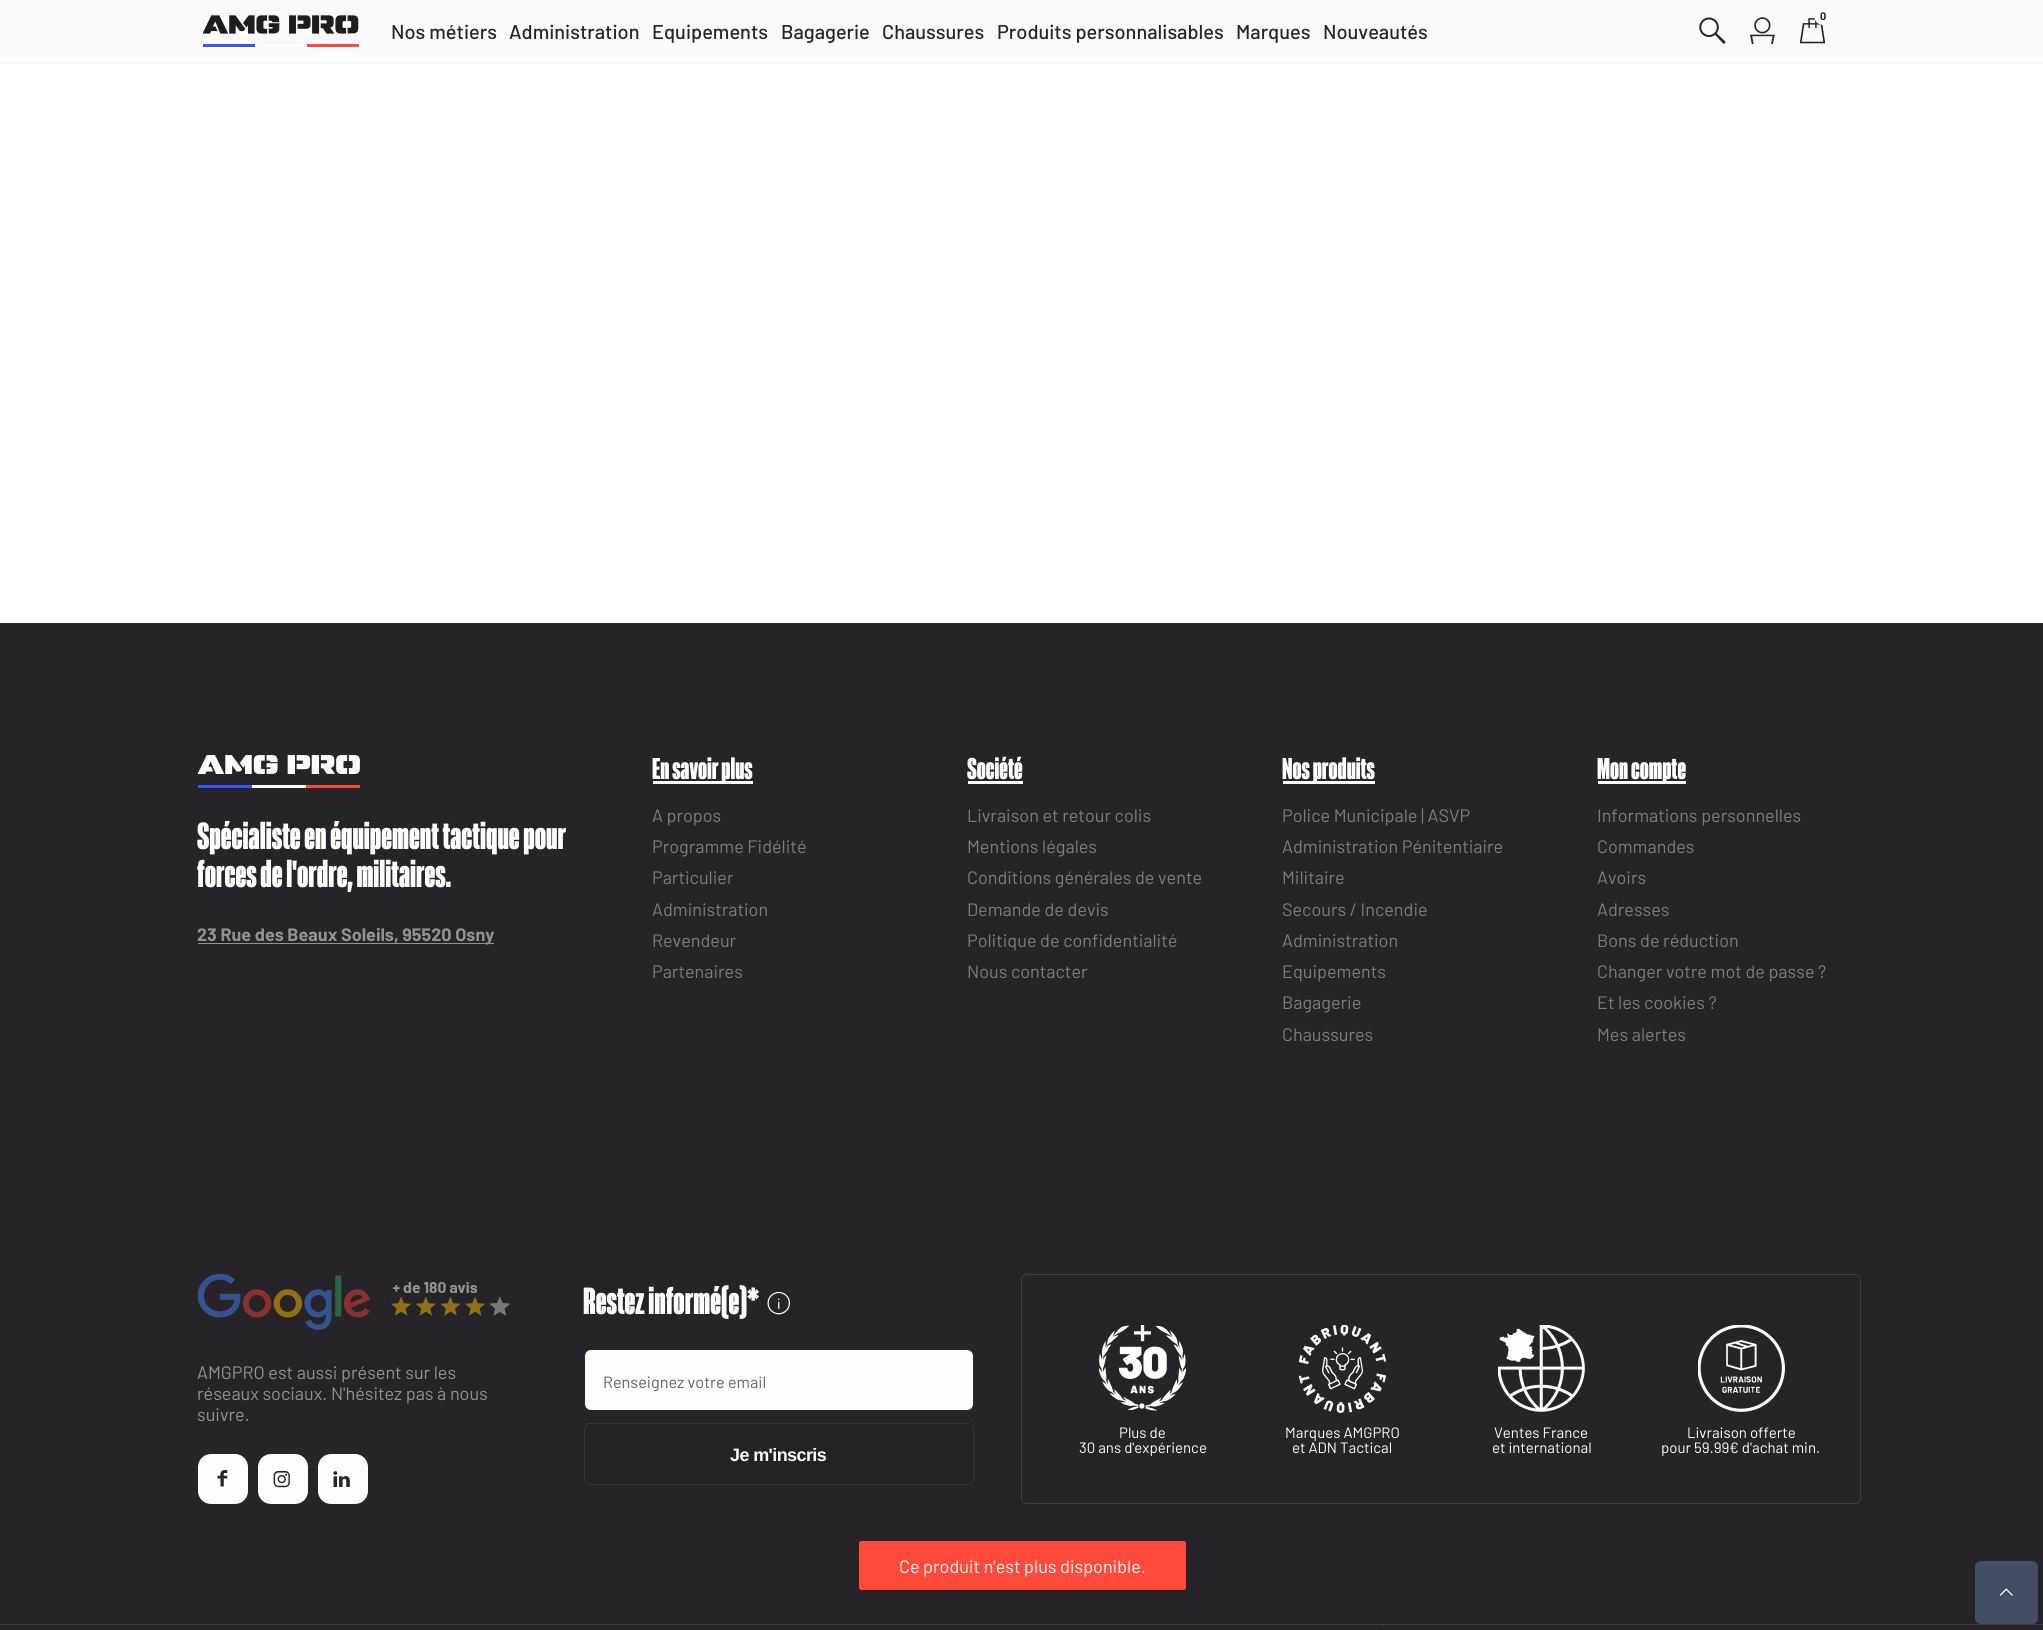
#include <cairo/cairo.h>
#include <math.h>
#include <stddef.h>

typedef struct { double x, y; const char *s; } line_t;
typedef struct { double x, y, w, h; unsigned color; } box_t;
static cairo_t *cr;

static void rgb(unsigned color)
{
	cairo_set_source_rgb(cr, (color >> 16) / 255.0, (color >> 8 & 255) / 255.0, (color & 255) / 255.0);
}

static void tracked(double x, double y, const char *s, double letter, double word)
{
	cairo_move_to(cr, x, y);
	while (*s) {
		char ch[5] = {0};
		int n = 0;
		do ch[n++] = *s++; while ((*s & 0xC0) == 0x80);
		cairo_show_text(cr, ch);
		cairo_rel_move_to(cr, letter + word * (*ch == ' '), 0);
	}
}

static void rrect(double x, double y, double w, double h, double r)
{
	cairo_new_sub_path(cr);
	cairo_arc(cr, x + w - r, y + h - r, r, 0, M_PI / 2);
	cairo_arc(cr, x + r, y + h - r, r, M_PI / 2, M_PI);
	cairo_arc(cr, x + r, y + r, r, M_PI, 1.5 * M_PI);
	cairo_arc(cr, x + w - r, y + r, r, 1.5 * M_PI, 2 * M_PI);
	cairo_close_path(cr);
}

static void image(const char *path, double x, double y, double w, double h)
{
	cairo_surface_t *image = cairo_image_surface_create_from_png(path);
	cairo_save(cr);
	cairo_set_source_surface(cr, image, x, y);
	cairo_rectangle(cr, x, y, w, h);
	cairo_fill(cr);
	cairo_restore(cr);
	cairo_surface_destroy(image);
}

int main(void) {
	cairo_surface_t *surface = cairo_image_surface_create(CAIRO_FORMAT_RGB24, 2043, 1630);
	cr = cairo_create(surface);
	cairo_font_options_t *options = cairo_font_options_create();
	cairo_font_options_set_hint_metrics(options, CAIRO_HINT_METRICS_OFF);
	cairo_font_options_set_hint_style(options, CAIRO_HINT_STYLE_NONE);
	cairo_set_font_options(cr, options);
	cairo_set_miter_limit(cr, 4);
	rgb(0xffffff);
	cairo_paint(cr);
	rgb(0xf4f4f4);
	cairo_rectangle(cr, 0, 63, 2043, 1);
	cairo_fill(cr);
	rgb(0xfbfbff);
	cairo_rectangle(cr, 0, 0, 2043, 63);
	cairo_fill(cr);
	image("img/1.png", 1699, 17, 27, 27);
	image("img/2.png", 1750, 17, 25, 27);
	image("img/3.png", 1800, 18, 25, 26);
	rgb(0xffffff);
	cairo_arc(cr, 1823.5, 15.5, 9.5, 0, 2 * M_PI);
	cairo_fill(cr);
	image("img/4.png", 203, 15, 156, 32);
	rgb(0x262429);
	cairo_rectangle(cr, 0, 623, 2043, 1001);
	cairo_fill(cr);
	image("img/5.png", 198, 755, 162, 33);
	{
		static const box_t items[] = {
			{198, 943, 296, 1, 0x929193},
			{653, 781, 100, 3, 0xfdfdfd},
			{968, 781, 55, 3, 0xfdfdfd},
			{1283, 781, 92, 3, 0xfdfdfd},
			{1598, 781, 88, 3, 0xfdfdfd},
		};
		for (size_t i = 0; i < sizeof items / sizeof *items; i++) {
			rgb(items[i].color);
			cairo_rectangle(cr, items[i].x, items[i].y, items[i].w, items[i].h);
			cairo_fill(cr);
		}
	}
	image("img/6.png", 198, 1274, 312, 56);
	rrect(198, 1454, 50, 50, 13);
	cairo_fill(cr);
	image("img/7.png", 217, 1470, 11, 17);
	rrect(258, 1454, 50, 50, 13);
	cairo_fill(cr);
	image("img/8.png", 273, 1470, 17, 18);
	rrect(318, 1454, 50, 50, 13);
	cairo_fill(cr);
	image("img/9.png", 333, 1471, 17, 16);
	image("img/10.png", 767, 1291, 23, 24);
	rrect(585, 1350, 388, 60, 6);
	cairo_fill(cr);
	rgb(0x242226);
	rrect(584.5, 1423.5, 389, 61, 5.5);
	cairo_fill_preserve(cr);
	rgb(0x353337);
	cairo_set_line_width(cr, 1);
	cairo_stroke(cr);
	rrect(1021.5, 1274.5, 839, 229, 5.5);
	rgb(0x3f3d3d);
	cairo_stroke(cr);
	image("img/11.png", 1099, 1325, 87, 86);
	image("img/12.png", 1299, 1325, 87, 88);
	image("img/13.png", 1498, 1325, 87, 87);
	image("img/14.png", 1698, 1325, 87, 87);
	{
		static const box_t items[] = {
			{0, 1625, 2043, 5, 0x262429},
			{0, 1624, 2043, 1, 0x3f3d3d},
			{1376, 1629, 1, 1, 0x195644},
		};
		for (size_t i = 0; i < sizeof items / sizeof *items; i++) {
			rgb(items[i].color);
			cairo_rectangle(cr, items[i].x, items[i].y, items[i].w, items[i].h);
			cairo_fill(cr);
		}
	}
	rgb(0xff4a3b);
	rrect(859.5, 1541.5, 326, 48, 2);
	cairo_fill_preserve(cr);
	cairo_stroke(cr);
	rgb(0x434d63);
	rrect(1975, 1561, 63, 63, 6);
	cairo_fill(cr);
	image("img/15.png", 1999, 1588, 14, 8);
	cairo_select_font_face(cr, "Barlow", CAIRO_FONT_SLANT_NORMAL, CAIRO_FONT_WEIGHT_BOLD);
	cairo_set_font_size(cr, 11);
	rgb(0x262429);
	cairo_move_to(cr, 1820, 20);
	cairo_show_text(cr, "0");
	cairo_select_font_face(cr, "Barlow Medium", CAIRO_FONT_SLANT_NORMAL, CAIRO_FONT_WEIGHT_NORMAL);
	cairo_set_font_size(cr, 20);
	{
		static const line_t items[] = {
			{391, 39, "Nos métiers"},
			{509, 39, "Administration"},
			{652, 39, "Equipements"},
			{781, 39, "Bagagerie"},
			{882, 39, "Chaussures"},
			{997, 39, "Produits personnalisables"},
			{1236, 39, "Marques"},
			{1323, 39, "Nouveautés"},
		};
		for (size_t i = 0; i < sizeof items / sizeof *items; i++) {
			cairo_move_to(cr, items[i].x, items[i].y);
			cairo_show_text(cr, items[i].s);
		}
	}
	cairo_select_font_face(cr, "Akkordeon", CAIRO_FONT_SLANT_NORMAL, CAIRO_FONT_WEIGHT_NORMAL);
	cairo_set_font_size(cr, 37.75);
	rgb(0xfdfdfd);
	cairo_move_to(cr, 197, 849);
	cairo_show_text(cr, "Spécialiste en équipement tactique pour");
	cairo_move_to(cr, 197, 887);
	cairo_show_text(cr, "forces de l'ordre, militaires.");
	cairo_select_font_face(cr, "Barlow", CAIRO_FONT_SLANT_NORMAL, CAIRO_FONT_WEIGHT_BOLD);
	cairo_set_font_size(cr, 18);
	rgb(0x929193);
	cairo_move_to(cr, 197, 941);
	cairo_show_text(cr, "23 Rue des Beaux Soleils, 95520 Osny");
	cairo_select_font_face(cr, "Akkordeon", CAIRO_FONT_SLANT_NORMAL, CAIRO_FONT_WEIGHT_NORMAL);
	cairo_set_font_size(cr, 30);
	rgb(0xfdfdfd);
	cairo_move_to(cr, 652, 779);
	cairo_show_text(cr, "En savoir plus");
	cairo_select_font_face(cr, "Barlow", CAIRO_FONT_SLANT_NORMAL, CAIRO_FONT_WEIGHT_NORMAL);
	cairo_set_font_size(cr, 18);
	rgb(0x7c7b7e);
	{
		static const line_t items[] = {
			{652, 822, "A propos"},
			{652, 853, "Programme Fidélité"},
			{652, 884, "Particulier"},
			{652, 916, "Administration"},
			{652, 947, "Revendeur"},
			{652, 978, "Partenaires"},
		};
		for (size_t i = 0; i < sizeof items / sizeof *items; i++) {
			cairo_move_to(cr, items[i].x, items[i].y);
			cairo_show_text(cr, items[i].s);
		}
	}
	cairo_select_font_face(cr, "Akkordeon", CAIRO_FONT_SLANT_NORMAL, CAIRO_FONT_WEIGHT_NORMAL);
	cairo_set_font_size(cr, 30);
	rgb(0xfdfdfd);
	cairo_move_to(cr, 967, 779);
	cairo_show_text(cr, "Société");
	cairo_select_font_face(cr, "Barlow", CAIRO_FONT_SLANT_NORMAL, CAIRO_FONT_WEIGHT_NORMAL);
	cairo_set_font_size(cr, 18);
	rgb(0x7c7b7e);
	{
		static const line_t items[] = {
			{967, 822, "Livraison et retour colis"},
			{967, 853, "Mentions légales"},
			{967, 884, "Conditions générales de vente"},
			{967, 916, "Demande de devis"},
			{967, 947, "Politique de confidentialité"},
			{967, 978, "Nous contacter"},
		};
		for (size_t i = 0; i < sizeof items / sizeof *items; i++) {
			cairo_move_to(cr, items[i].x, items[i].y);
			cairo_show_text(cr, items[i].s);
		}
	}
	cairo_select_font_face(cr, "Akkordeon", CAIRO_FONT_SLANT_NORMAL, CAIRO_FONT_WEIGHT_NORMAL);
	cairo_set_font_size(cr, 30);
	rgb(0xfdfdfd);
	cairo_move_to(cr, 1282, 779);
	cairo_show_text(cr, "Nos produits");
	cairo_select_font_face(cr, "Barlow", CAIRO_FONT_SLANT_NORMAL, CAIRO_FONT_WEIGHT_NORMAL);
	cairo_set_font_size(cr, 18);
	rgb(0x7c7b7e);
	{
		static const line_t items[] = {
			{1282, 822, "Police Municipale | ASVP"},
			{1282, 853, "Administration Pénitentiaire"},
			{1282, 884, "Militaire"},
			{1282, 916, "Secours / Incendie"},
			{1282, 947, "Administration"},
			{1282, 978, "Equipements"},
			{1282, 1009, "Bagagerie"},
			{1282, 1041, "Chaussures"},
		};
		for (size_t i = 0; i < sizeof items / sizeof *items; i++) {
			cairo_move_to(cr, items[i].x, items[i].y);
			cairo_show_text(cr, items[i].s);
		}
	}
	cairo_select_font_face(cr, "Akkordeon", CAIRO_FONT_SLANT_NORMAL, CAIRO_FONT_WEIGHT_NORMAL);
	cairo_set_font_size(cr, 30);
	rgb(0xfdfdfd);
	cairo_move_to(cr, 1597, 779);
	cairo_show_text(cr, "Mon compte");
	cairo_select_font_face(cr, "Barlow", CAIRO_FONT_SLANT_NORMAL, CAIRO_FONT_WEIGHT_NORMAL);
	cairo_set_font_size(cr, 18);
	rgb(0x7c7b7e);
	{
		static const line_t items[] = {
			{1597, 822, "Informations personnelles"},
			{1597, 853, "Commandes"},
			{1597, 884, "Avoirs"},
			{1597, 916, "Adresses"},
			{1597, 947, "Bons de réduction"},
			{1597, 978, "Changer votre mot de passe ?"},
			{1597, 1009, "Et les cookies ?"},
			{1597, 1041, "Mes alertes"},
		};
		for (size_t i = 0; i < sizeof items / sizeof *items; i++) {
			cairo_move_to(cr, items[i].x, items[i].y);
			cairo_show_text(cr, items[i].s);
		}
	}
	rgb(0x929193);
	{
		static const line_t items[] = {
			{197, 1379, "AMGPRO est aussi présent sur les"},
			{197, 1400, "réseaux sociaux. N'hésitez pas à nous"},
			{197, 1421, "suivre."},
		};
		for (size_t i = 0; i < sizeof items / sizeof *items; i++) {
			cairo_move_to(cr, items[i].x, items[i].y);
			cairo_show_text(cr, items[i].s);
		}
	}
	cairo_select_font_face(cr, "Akkordeon", CAIRO_FONT_SLANT_NORMAL, CAIRO_FONT_WEIGHT_NORMAL);
	cairo_set_font_size(cr, 37.75);
	rgb(0xfdfdfd);
	cairo_move_to(cr, 583, 1314);
	cairo_show_text(cr, "Restez informé(e)*");
	cairo_select_font_face(cr, "Barlow", CAIRO_FONT_SLANT_NORMAL, CAIRO_FONT_WEIGHT_NORMAL);
	cairo_set_font_size(cr, 16.25);
	rgb(0x656465);
	cairo_move_to(cr, 603, 1388);
	cairo_show_text(cr, "Renseignez votre email");
	cairo_select_font_face(cr, "Liberation Sans", CAIRO_FONT_SLANT_NORMAL, CAIRO_FONT_WEIGHT_BOLD);
	cairo_set_font_size(cr, 18);
	rgb(0xfdfdfd);
	tracked(730, 1461, "Je m'inscris", -0.6, 0);
	cairo_select_font_face(cr, "Barlow", CAIRO_FONT_SLANT_NORMAL, CAIRO_FONT_WEIGHT_NORMAL);
	cairo_set_font_size(cr, 15);
	{
		static const line_t items[] = {
			{1119, 1438, "Plus de"},
			{1079, 1453, "30 ans d'expérience"},
			{1285, 1438, "Marques AMGPRO"},
			{1292, 1453, "et ADN Tactical"},
			{1494, 1438, "Ventes France"},
			{1492, 1453, "et international"},
			{1687, 1438, "Livraison offerte"},
			{1661, 1453, "pour 59.99€ d'achat min."},
		};
		for (size_t i = 0; i < sizeof items / sizeof *items; i++) {
			cairo_move_to(cr, items[i].x, items[i].y);
			cairo_show_text(cr, items[i].s);
		}
	}
	cairo_set_font_size(cr, 18);
	cairo_move_to(cr, 899, 1573);
	cairo_show_text(cr, "Ce produit n'est plus disponible.");
	cairo_surface_write_to_png(surface, "page.png");
	cairo_font_options_destroy(options);
	cairo_destroy(cr);
	cairo_surface_destroy(surface);
	return 0;
}
